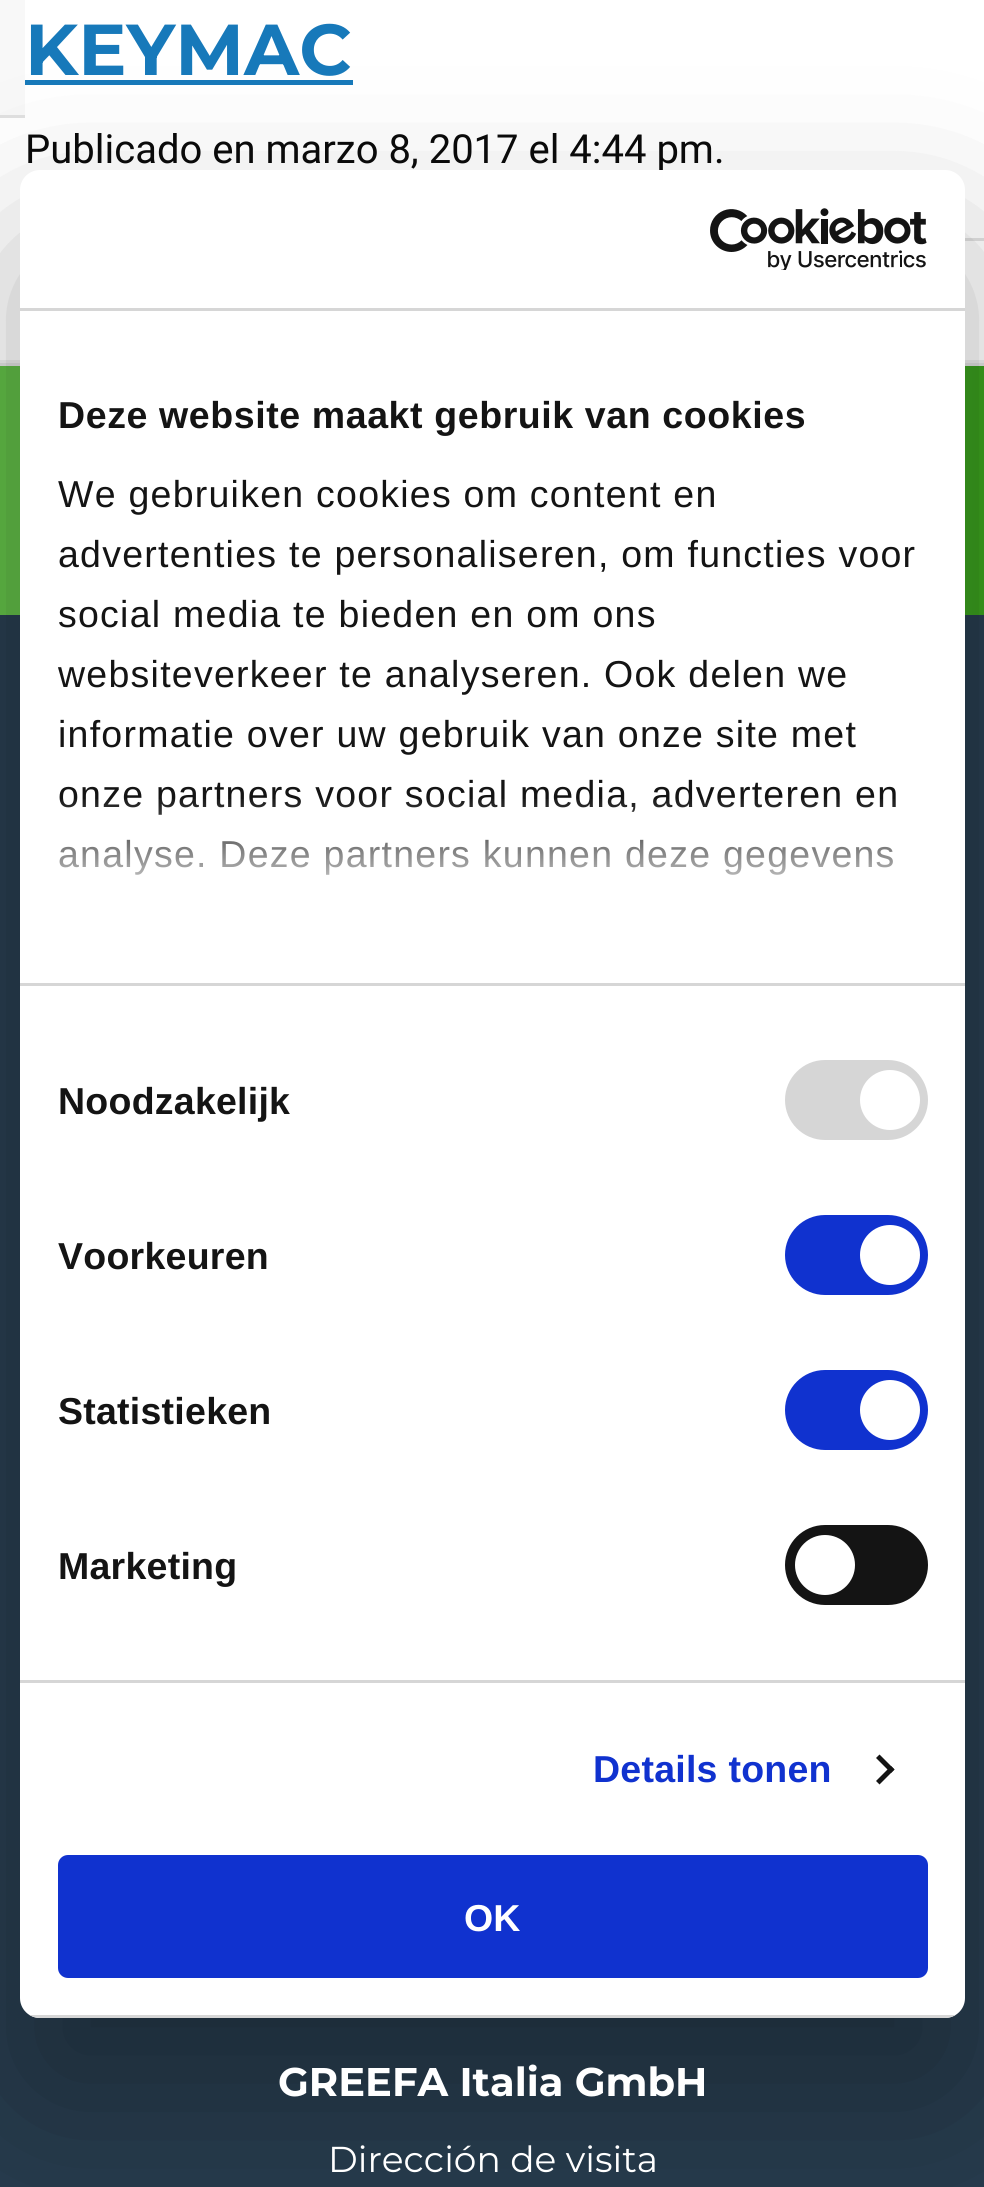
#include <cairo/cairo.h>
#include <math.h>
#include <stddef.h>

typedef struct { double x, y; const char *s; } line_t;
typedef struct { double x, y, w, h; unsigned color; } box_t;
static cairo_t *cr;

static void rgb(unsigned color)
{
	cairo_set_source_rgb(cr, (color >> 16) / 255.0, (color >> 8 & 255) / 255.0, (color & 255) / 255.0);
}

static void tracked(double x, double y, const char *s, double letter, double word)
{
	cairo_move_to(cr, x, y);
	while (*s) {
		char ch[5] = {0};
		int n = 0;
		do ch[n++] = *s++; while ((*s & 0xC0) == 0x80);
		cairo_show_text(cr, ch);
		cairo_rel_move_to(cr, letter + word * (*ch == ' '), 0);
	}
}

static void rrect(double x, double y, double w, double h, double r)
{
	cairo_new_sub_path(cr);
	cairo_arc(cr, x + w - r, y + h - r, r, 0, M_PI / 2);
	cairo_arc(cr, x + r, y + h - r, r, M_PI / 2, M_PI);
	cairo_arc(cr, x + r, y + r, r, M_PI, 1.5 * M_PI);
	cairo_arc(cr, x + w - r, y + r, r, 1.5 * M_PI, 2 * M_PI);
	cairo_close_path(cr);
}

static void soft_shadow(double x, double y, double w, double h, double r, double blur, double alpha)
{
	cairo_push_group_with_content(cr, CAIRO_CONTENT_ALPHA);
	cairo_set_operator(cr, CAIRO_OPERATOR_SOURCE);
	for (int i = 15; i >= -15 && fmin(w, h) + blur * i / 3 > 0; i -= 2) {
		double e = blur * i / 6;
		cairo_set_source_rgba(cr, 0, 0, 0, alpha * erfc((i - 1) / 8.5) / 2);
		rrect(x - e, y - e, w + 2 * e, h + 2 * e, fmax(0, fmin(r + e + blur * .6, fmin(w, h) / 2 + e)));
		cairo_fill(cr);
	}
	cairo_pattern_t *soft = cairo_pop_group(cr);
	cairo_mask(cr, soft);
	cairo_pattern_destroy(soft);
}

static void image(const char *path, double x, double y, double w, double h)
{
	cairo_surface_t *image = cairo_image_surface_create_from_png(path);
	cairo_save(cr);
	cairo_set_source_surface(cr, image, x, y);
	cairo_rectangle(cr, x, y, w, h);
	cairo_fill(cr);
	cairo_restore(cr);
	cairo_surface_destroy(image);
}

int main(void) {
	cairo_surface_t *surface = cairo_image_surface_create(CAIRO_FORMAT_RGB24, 984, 2187);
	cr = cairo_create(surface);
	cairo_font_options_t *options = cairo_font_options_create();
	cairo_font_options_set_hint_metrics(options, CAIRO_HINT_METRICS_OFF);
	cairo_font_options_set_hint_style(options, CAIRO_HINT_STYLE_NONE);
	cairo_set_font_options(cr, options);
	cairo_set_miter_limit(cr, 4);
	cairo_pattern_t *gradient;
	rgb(0x273c4e);
	cairo_paint(cr);
	{
		static const box_t items[] = {
			{0, 118, 984, 242, 0xffffff},
			{0, 363, 984, 3, 0xe1e1e1},
			{0, 0, 25, 115, 0xf8f8f8},
			{0, 115, 25, 3, 0xe1e1e1},
			{0, 360, 984, 3, 0xefefef},
			{25, 0, 959, 118, 0xffffff},
			{965, 238, 19, 3, 0xe1e1e1},
			{25, 80, 328, 5, 0x1779ba},
		};
		for (size_t i = 0; i < sizeof items / sizeof *items; i++) {
			rgb(items[i].color);
			cairo_rectangle(cr, items[i].x, items[i].y, items[i].w, items[i].h);
			cairo_fill(cr);
		}
	}
	gradient = cairo_pattern_create_linear(0, 380, 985, 380);
	cairo_pattern_add_color_stop_rgba(gradient, 0.01, 0.376, 0.733, 0.275, 1);
	cairo_pattern_add_color_stop_rgba(gradient, 1, 0.227, 0.62, 0.114, 1);
	cairo_set_source(cr, gradient);
	cairo_pattern_destroy(gradient);
	cairo_rectangle(cr, 0, 366, 984, 249);
	cairo_fill(cr);
	rgb(0x000000);
	soft_shadow(20, 250, 945, 1848, 20, 85, 0.3);
	cairo_select_font_face(cr, "Montserrat", CAIRO_FONT_SLANT_NORMAL, CAIRO_FONT_WEIGHT_BOLD);
	cairo_set_font_size(cr, 72);
	rgb(0x1779ba);
	cairo_move_to(cr, 25, 75);
	cairo_show_text(cr, "KEYMAC");
	cairo_select_font_face(cr, "Roboto", CAIRO_FONT_SLANT_NORMAL, CAIRO_FONT_WEIGHT_NORMAL);
	cairo_set_font_size(cr, 40);
	rgb(0x0a0a0a);
	cairo_move_to(cr, 25, 163);
	cairo_show_text(cr, "Publicado en marzo 8, 2017 el 4:44 pm.");
	rgb(0xffffff);
	rrect(20, 170, 945, 1848, 20);
	cairo_fill(cr);
	rgb(0xd6d6d6);
	cairo_rectangle(cr, 20, 308, 945, 3);
	cairo_fill(cr);
	image("img/1.png", 710, 208, 217, 62);
	cairo_rectangle(cr, 20, 983, 945, 3);
	cairo_fill(cr);
	cairo_select_font_face(cr, "Liberation Sans", CAIRO_FONT_SLANT_NORMAL, CAIRO_FONT_WEIGHT_BOLD);
	cairo_set_font_size(cr, 37.5);
	rgb(0x141414);
	tracked(58, 428, "Deze website maakt gebruik van cookies", 0.6, 0);
	cairo_select_font_face(cr, "Liberation Sans", CAIRO_FONT_SLANT_NORMAL, CAIRO_FONT_WEIGHT_NORMAL);
	{
		static const line_t items[] = {
			{58, 507, "We gebruiken cookies om content en"},
			{58, 567, "advertenties te personaliseren, om functies voor"},
			{58, 627, "social media te bieden en om ons"},
			{58, 687, "websiteverkeer te analyseren. Ook delen we"},
			{58, 747, "informatie over uw gebruik van onze site met"},
			{58, 807, "onze partners voor social media, adverteren en"},
			{58, 867, "analyse. Deze partners kunnen deze gegevens"},
		};
		for (size_t i = 0; i < sizeof items / sizeof *items; i++) {
			tracked(items[i].x, items[i].y, items[i].s, 1.25, 0);
		}
	}
	gradient = cairo_pattern_create_linear(476, 983, 476, 796);
	cairo_pattern_add_color_stop_rgba(gradient, 0, 1, 1, 1, 1);
	cairo_pattern_add_color_stop_rgba(gradient, 0.5, 1, 1, 1, 0.8);
	cairo_pattern_add_color_stop_rgba(gradient, 1, 1, 1, 1, 0);
	cairo_set_source(cr, gradient);
	cairo_pattern_destroy(gradient);
	cairo_rectangle(cr, 59, 799, 836, 76);
	cairo_fill(cr);
	rgb(0xd6d6d6);
	cairo_rectangle(cr, 20, 1680, 945, 3);
	cairo_fill(cr);
	cairo_select_font_face(cr, "Liberation Sans", CAIRO_FONT_SLANT_NORMAL, CAIRO_FONT_WEIGHT_BOLD);
	rgb(0x141414);
	tracked(58, 1114, "Noodzakelijk", 0.25, 0);
	rgb(0xd6d6d6);
	rrect(785, 1060, 143, 80, 40);
	cairo_fill(cr);
	rgb(0xffffff);
	cairo_arc(cr, 890, 1100, 30, 0, 2 * M_PI);
	cairo_fill(cr);
	rgb(0x141414);
	tracked(58, 1269, "Voorkeuren", 0.25, 0);
	rgb(0x1032cf);
	rrect(785, 1215, 143, 80, 40);
	cairo_fill(cr);
	rgb(0xffffff);
	cairo_arc(cr, 890, 1255, 30, 0, 2 * M_PI);
	cairo_fill(cr);
	rgb(0x141414);
	tracked(58, 1424, "Statistieken", 0.25, 0);
	rgb(0x1032cf);
	rrect(785, 1370, 143, 80, 40);
	cairo_fill(cr);
	rgb(0xffffff);
	cairo_arc(cr, 890, 1410, 30, 0, 2 * M_PI);
	cairo_fill(cr);
	rgb(0x141414);
	tracked(58, 1579, "Marketing", 0.25, 0);
	rrect(785, 1525, 143, 80, 40);
	cairo_fill(cr);
	rgb(0xffffff);
	cairo_arc(cr, 825, 1565, 30, 0, 2 * M_PI);
	cairo_fill(cr);
	rgb(0x1032cf);
	tracked(593, 1782, "Details tonen", 0.25, 0);
	rgb(0x141414);
	cairo_new_path(cr);
	cairo_move_to(cr, 879.5, 1754.5);
	cairo_line_to(cr, 894.5, 1769.5);
	cairo_line_to(cr, 891, 1773);
	cairo_line_to(cr, 876, 1758);
	cairo_close_path(cr);
	cairo_fill(cr);
	cairo_new_path(cr);
	cairo_move_to(cr, 891, 1766);
	cairo_line_to(cr, 894.5, 1769.5);
	cairo_line_to(cr, 879.5, 1784.5);
	cairo_line_to(cr, 876, 1781);
	cairo_close_path(cr);
	cairo_fill(cr);
	cairo_save(cr);
	rrect(20, 170, 945, 1848, 20);
	cairo_clip(cr);
	rgb(0xd6d6d6);
	cairo_rectangle(cr, 29, 2015, 927, 3);
	cairo_fill(cr);
	cairo_restore(cr);
	rgb(0x1032cf);
	rrect(60.5, 1857.5, 865, 118, 7.5);
	cairo_fill_preserve(cr);
	cairo_set_line_width(cr, 5);
	cairo_stroke(cr);
	rgb(0xffffff);
	cairo_move_to(cr, 464, 1931);
	cairo_show_text(cr, "OK");
	cairo_select_font_face(cr, "Montserrat", CAIRO_FONT_SLANT_NORMAL, CAIRO_FONT_WEIGHT_BOLD);
	cairo_set_font_size(cr, 40);
	cairo_move_to(cr, 278, 2096);
	cairo_show_text(cr, "GREEFA Italia GmbH");
	cairo_select_font_face(cr, "Montserrat", CAIRO_FONT_SLANT_NORMAL, CAIRO_FONT_WEIGHT_NORMAL);
	cairo_set_font_size(cr, 36);
	cairo_move_to(cr, 328, 2172);
	cairo_show_text(cr, "Dirección de visita");
	cairo_surface_write_to_png(surface, "page.png");
	cairo_font_options_destroy(options);
	cairo_destroy(cr);
	cairo_surface_destroy(surface);
	return 0;
}
